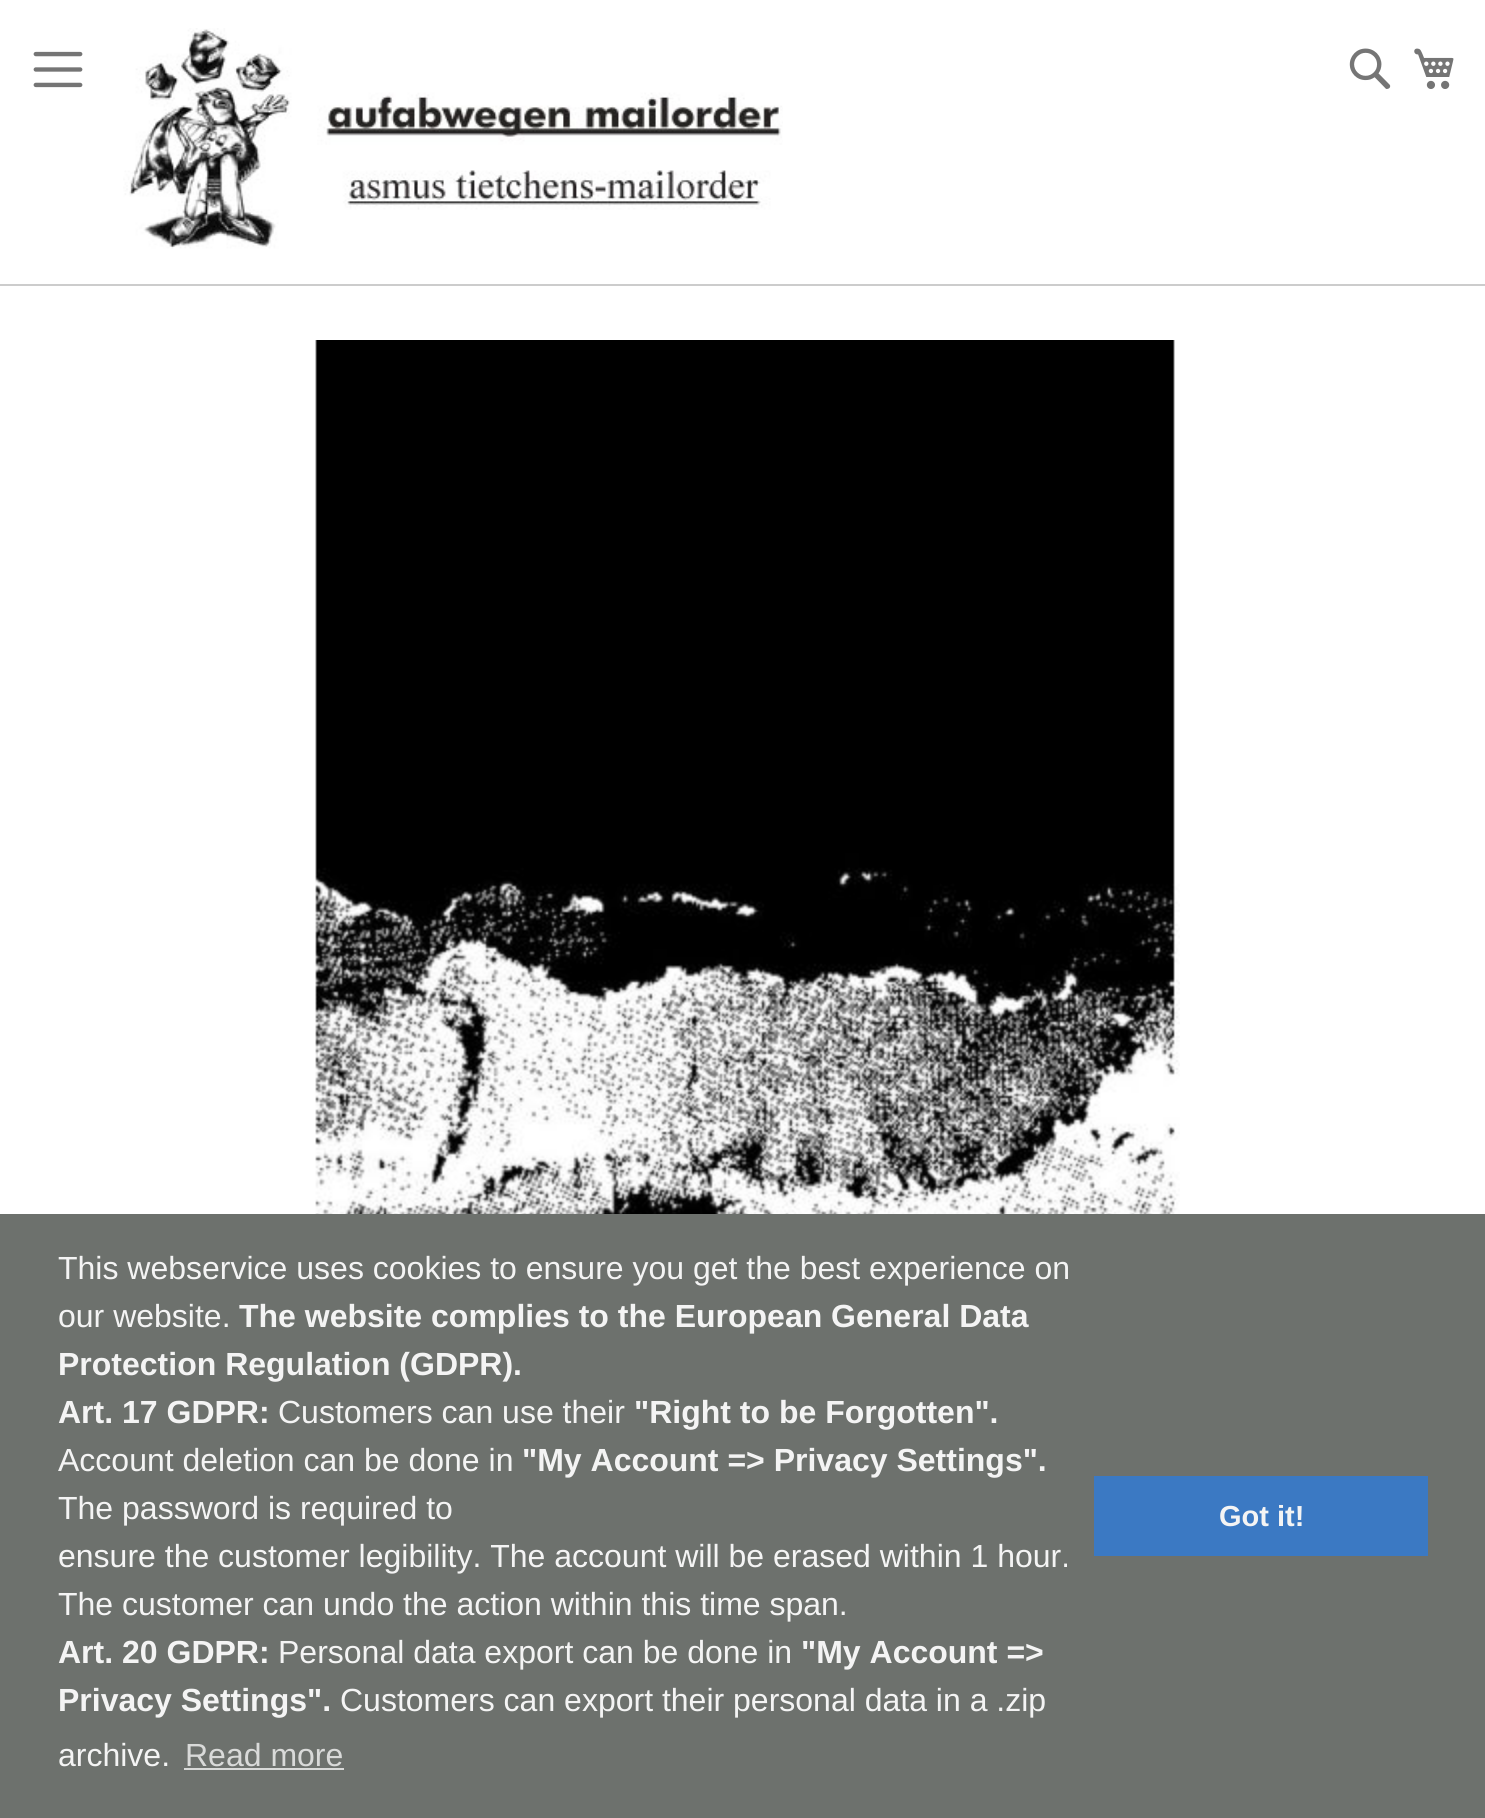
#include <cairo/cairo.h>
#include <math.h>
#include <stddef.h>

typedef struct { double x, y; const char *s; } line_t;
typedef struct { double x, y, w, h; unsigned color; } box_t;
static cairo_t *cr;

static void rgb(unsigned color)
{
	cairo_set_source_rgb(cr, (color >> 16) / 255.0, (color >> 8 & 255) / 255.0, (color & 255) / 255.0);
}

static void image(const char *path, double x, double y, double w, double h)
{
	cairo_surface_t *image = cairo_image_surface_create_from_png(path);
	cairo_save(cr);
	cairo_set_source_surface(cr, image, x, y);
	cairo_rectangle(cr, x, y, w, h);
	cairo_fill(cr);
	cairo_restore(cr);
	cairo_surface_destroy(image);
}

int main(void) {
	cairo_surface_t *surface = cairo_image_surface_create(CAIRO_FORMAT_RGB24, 1485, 1818);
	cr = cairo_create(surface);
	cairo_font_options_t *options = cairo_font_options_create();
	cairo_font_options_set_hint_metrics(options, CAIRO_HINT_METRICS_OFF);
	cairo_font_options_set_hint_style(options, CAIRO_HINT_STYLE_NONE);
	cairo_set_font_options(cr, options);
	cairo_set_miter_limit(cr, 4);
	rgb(0xffffff);
	cairo_paint(cr);
	rgb(0xcccccc);
	cairo_rectangle(cr, 0, 284, 1485, 2);
	cairo_fill(cr);
	image("img/1.png", 33, 51, 50, 37);
	image("img/2.png", 123, 28, 660, 221);
	image("img/3.png", 1349, 48, 42, 41);
	image("img/4.png", 1414, 48, 40, 41);
	image("img/5.png", 315, 340, 865, 874);
	{
		static const box_t items[] = {
			{0, 1214, 1485, 604, 0x6d716d},
			{184, 1768, 160, 2, 0xd9dad9},
			{1094, 1476, 334, 80, 0x3b79c3},
		};
		for (size_t i = 0; i < sizeof items / sizeof *items; i++) {
			rgb(items[i].color);
			cairo_rectangle(cr, items[i].x, items[i].y, items[i].w, items[i].h);
			cairo_fill(cr);
		}
	}
	cairo_select_font_face(cr, "Liberation Sans", CAIRO_FONT_SLANT_NORMAL, CAIRO_FONT_WEIGHT_NORMAL);
	cairo_set_font_size(cr, 32);
	rgb(0xf4f4f4);
	cairo_move_to(cr, 58, 1279);
	cairo_show_text(cr, "This webservice uses cookies to ensure you get the best experience on");
	cairo_move_to(cr, 58, 1327);
	cairo_show_text(cr, "our website.");
	cairo_select_font_face(cr, "Liberation Sans", CAIRO_FONT_SLANT_NORMAL, CAIRO_FONT_WEIGHT_BOLD);
	{
		static const line_t items[] = {
			{239, 1327, "The website complies to the European General Data"},
			{58, 1375, "Protection Regulation (GDPR)."},
			{58, 1423, "Art. 17 GDPR:"},
		};
		for (size_t i = 0; i < sizeof items / sizeof *items; i++) {
			cairo_move_to(cr, items[i].x, items[i].y);
			cairo_show_text(cr, items[i].s);
		}
	}
	cairo_select_font_face(cr, "Liberation Sans", CAIRO_FONT_SLANT_NORMAL, CAIRO_FONT_WEIGHT_NORMAL);
	cairo_move_to(cr, 278, 1423);
	cairo_show_text(cr, "Customers can use their");
	cairo_select_font_face(cr, "Liberation Sans", CAIRO_FONT_SLANT_NORMAL, CAIRO_FONT_WEIGHT_BOLD);
	cairo_move_to(cr, 634, 1423);
	cairo_show_text(cr, "\"Right to be Forgotten\".");
	cairo_select_font_face(cr, "Liberation Sans", CAIRO_FONT_SLANT_NORMAL, CAIRO_FONT_WEIGHT_NORMAL);
	cairo_move_to(cr, 58, 1471);
	cairo_show_text(cr, "Account deletion can be done in");
	cairo_select_font_face(cr, "Liberation Sans", CAIRO_FONT_SLANT_NORMAL, CAIRO_FONT_WEIGHT_BOLD);
	cairo_move_to(cr, 522, 1471);
	cairo_show_text(cr, "\"My Account => Privacy Settings\".");
	cairo_select_font_face(cr, "Liberation Sans", CAIRO_FONT_SLANT_NORMAL, CAIRO_FONT_WEIGHT_NORMAL);
	{
		static const line_t items[] = {
			{58, 1519, "The password is required to"},
			{58, 1567, "ensure the customer legibility. The account will be erased within 1 hour."},
			{58, 1615, "The customer can undo the action within this time span."},
		};
		for (size_t i = 0; i < sizeof items / sizeof *items; i++) {
			cairo_move_to(cr, items[i].x, items[i].y);
			cairo_show_text(cr, items[i].s);
		}
	}
	cairo_select_font_face(cr, "Liberation Sans", CAIRO_FONT_SLANT_NORMAL, CAIRO_FONT_WEIGHT_BOLD);
	cairo_move_to(cr, 58, 1663);
	cairo_show_text(cr, "Art. 20 GDPR:");
	cairo_select_font_face(cr, "Liberation Sans", CAIRO_FONT_SLANT_NORMAL, CAIRO_FONT_WEIGHT_NORMAL);
	cairo_move_to(cr, 278, 1663);
	cairo_show_text(cr, "Personal data export can be done in");
	cairo_select_font_face(cr, "Liberation Sans", CAIRO_FONT_SLANT_NORMAL, CAIRO_FONT_WEIGHT_BOLD);
	cairo_move_to(cr, 801, 1663);
	cairo_show_text(cr, "\"My Account =>");
	cairo_move_to(cr, 58, 1711);
	cairo_show_text(cr, "Privacy Settings\".");
	cairo_select_font_face(cr, "Liberation Sans", CAIRO_FONT_SLANT_NORMAL, CAIRO_FONT_WEIGHT_NORMAL);
	cairo_move_to(cr, 340, 1711);
	cairo_show_text(cr, "Customers can export their personal data in a .zip");
	cairo_move_to(cr, 58, 1766);
	cairo_show_text(cr, "archive.");
	rgb(0xd9dad9);
	cairo_move_to(cr, 185, 1766);
	cairo_show_text(cr, "Read more");
	cairo_select_font_face(cr, "Liberation Sans", CAIRO_FONT_SLANT_NORMAL, CAIRO_FONT_WEIGHT_BOLD);
	cairo_set_font_size(cr, 29);
	rgb(0xf4f4f4);
	cairo_move_to(cr, 1219, 1526);
	cairo_show_text(cr, "Got it!");
	cairo_surface_write_to_png(surface, "page.png");
	cairo_font_options_destroy(options);
	cairo_destroy(cr);
	cairo_surface_destroy(surface);
	return 0;
}
